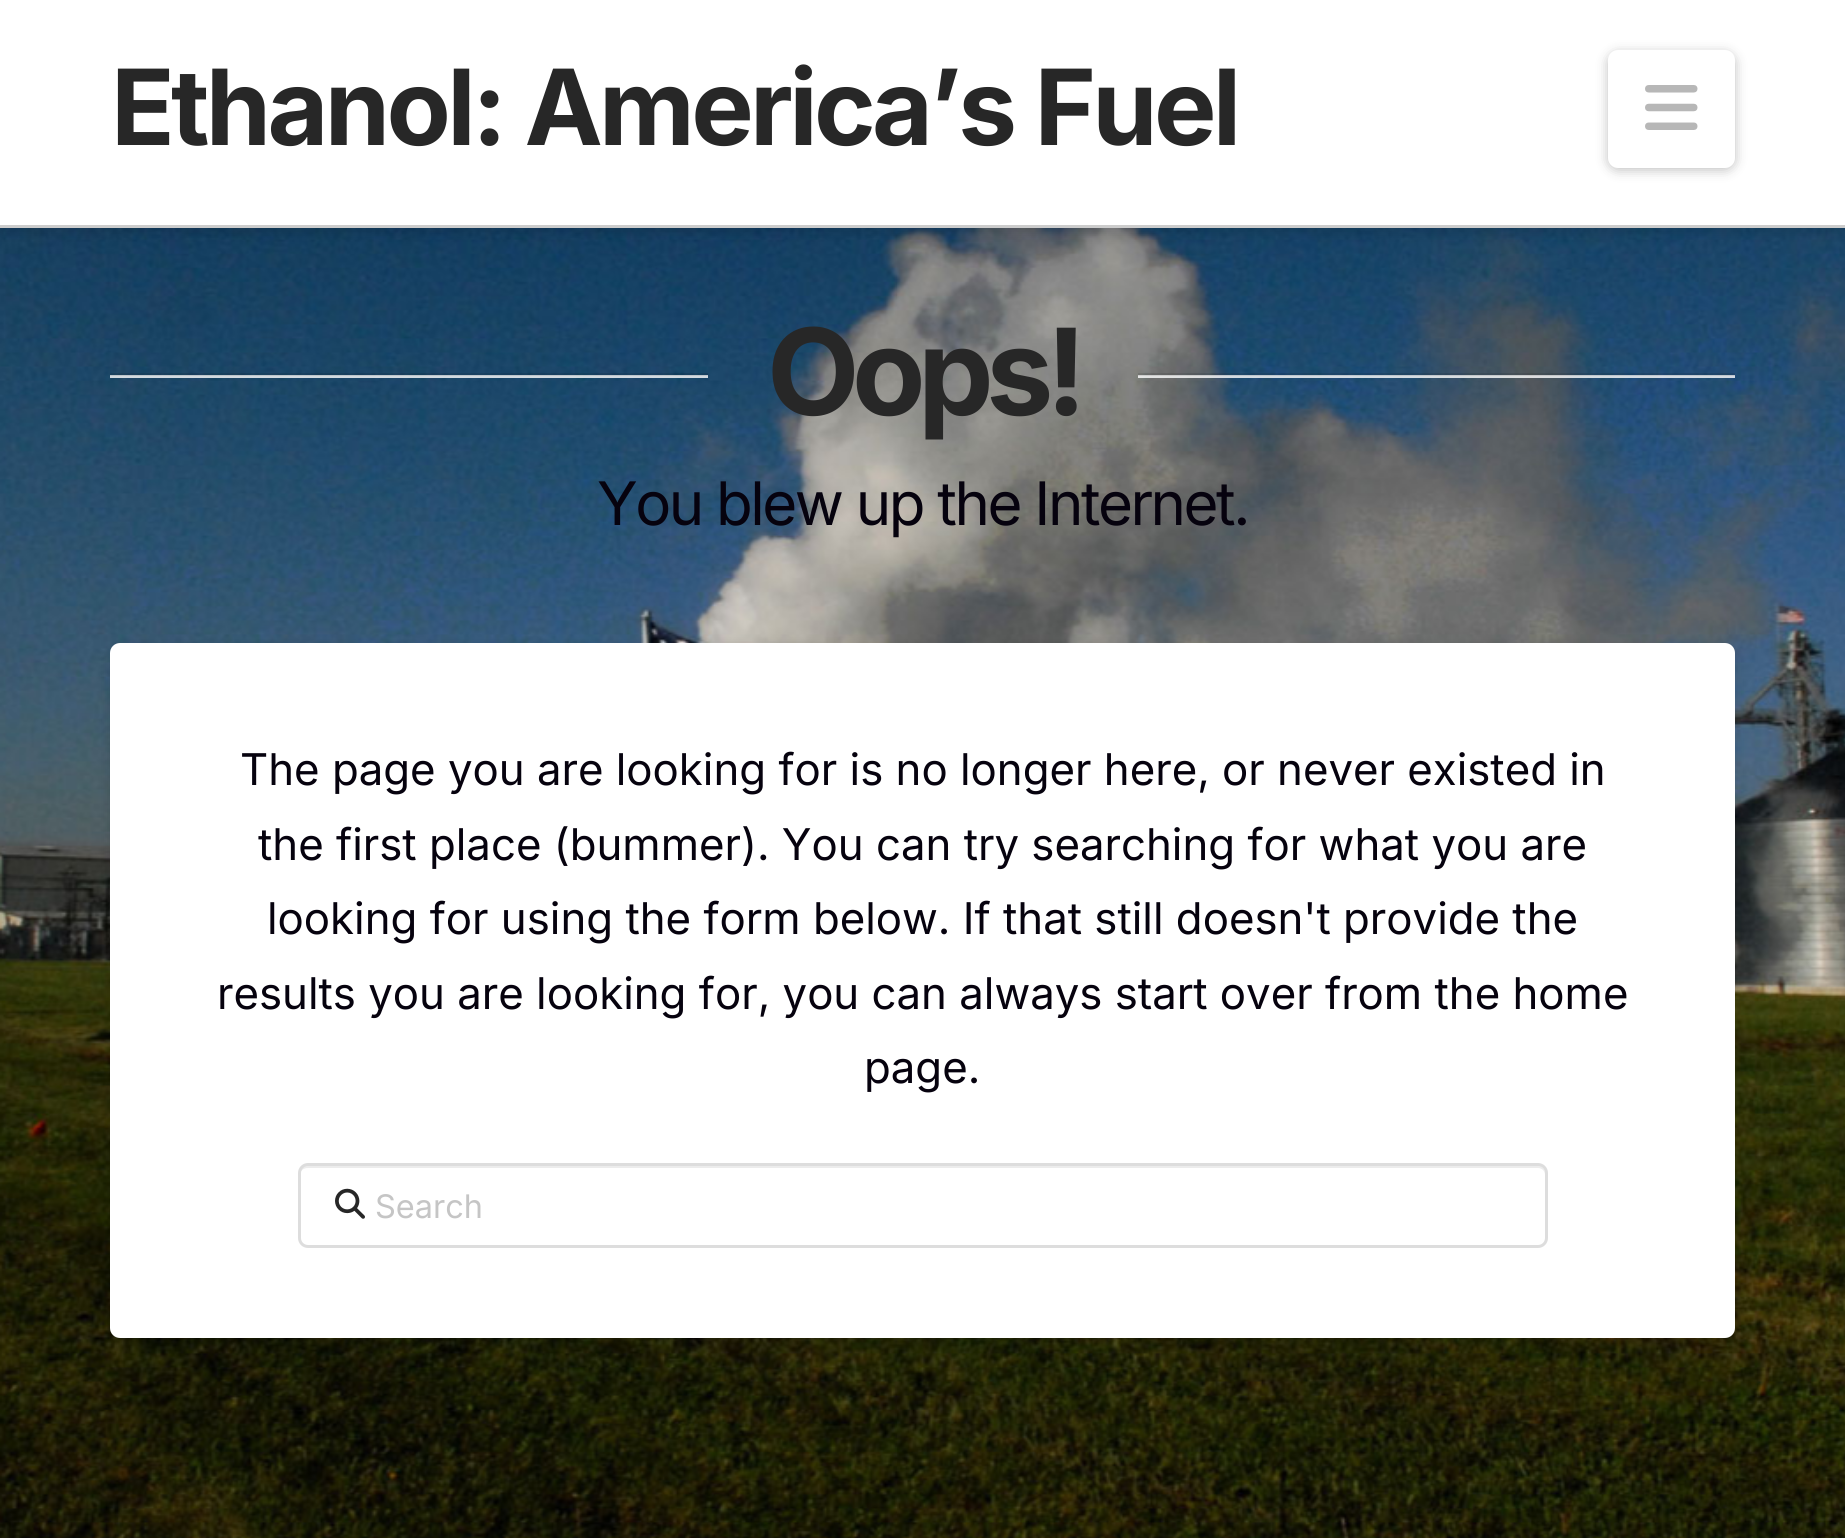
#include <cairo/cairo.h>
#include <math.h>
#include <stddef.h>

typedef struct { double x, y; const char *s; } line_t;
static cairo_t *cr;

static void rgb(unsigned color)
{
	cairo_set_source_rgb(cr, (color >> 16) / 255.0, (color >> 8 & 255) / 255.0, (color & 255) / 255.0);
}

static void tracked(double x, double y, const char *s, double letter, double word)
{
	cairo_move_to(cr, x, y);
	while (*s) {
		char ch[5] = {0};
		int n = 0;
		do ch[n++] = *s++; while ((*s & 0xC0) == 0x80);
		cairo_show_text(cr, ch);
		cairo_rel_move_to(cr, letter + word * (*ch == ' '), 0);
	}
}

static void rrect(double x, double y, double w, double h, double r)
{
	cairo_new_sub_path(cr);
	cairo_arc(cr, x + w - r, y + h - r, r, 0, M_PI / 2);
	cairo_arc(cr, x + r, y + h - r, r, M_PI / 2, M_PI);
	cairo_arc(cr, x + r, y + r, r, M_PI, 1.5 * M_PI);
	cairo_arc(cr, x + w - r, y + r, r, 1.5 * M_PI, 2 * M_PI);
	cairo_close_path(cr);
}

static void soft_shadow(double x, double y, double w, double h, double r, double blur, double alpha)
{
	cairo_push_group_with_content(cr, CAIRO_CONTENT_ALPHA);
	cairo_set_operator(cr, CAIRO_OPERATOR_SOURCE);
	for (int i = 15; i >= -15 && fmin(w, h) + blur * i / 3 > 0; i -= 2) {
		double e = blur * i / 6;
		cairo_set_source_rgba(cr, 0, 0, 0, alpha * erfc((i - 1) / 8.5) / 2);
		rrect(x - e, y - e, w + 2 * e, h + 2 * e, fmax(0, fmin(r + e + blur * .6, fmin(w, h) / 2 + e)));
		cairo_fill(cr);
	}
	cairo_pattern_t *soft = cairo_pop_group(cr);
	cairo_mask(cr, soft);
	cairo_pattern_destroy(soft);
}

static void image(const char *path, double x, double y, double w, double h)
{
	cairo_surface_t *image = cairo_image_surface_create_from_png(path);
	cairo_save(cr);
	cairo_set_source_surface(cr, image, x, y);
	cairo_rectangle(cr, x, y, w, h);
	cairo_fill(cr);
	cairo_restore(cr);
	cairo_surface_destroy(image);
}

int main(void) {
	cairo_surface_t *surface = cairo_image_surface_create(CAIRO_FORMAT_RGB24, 1845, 1538);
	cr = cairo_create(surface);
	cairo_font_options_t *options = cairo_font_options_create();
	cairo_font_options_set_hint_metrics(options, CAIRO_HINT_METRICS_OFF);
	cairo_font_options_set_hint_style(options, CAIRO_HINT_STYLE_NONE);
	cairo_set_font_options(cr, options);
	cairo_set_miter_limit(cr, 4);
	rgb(0xffffff);
	cairo_paint(cr);
	image("img/3.png", 0, 228, 1845, 1310);
	rgb(0x000000);
	soft_shadow(0, 5, 1845, 228, 0, 6, 0.13);
	rgb(0xffffff);
	cairo_rectangle(cr, 0, 0, 1845, 225);
	cairo_fill(cr);
	rgb(0xcccccc);
	cairo_rectangle(cr, 0, 225, 1845, 3);
	cairo_fill(cr);
	rgb(0x000000);
	soft_shadow(1608, 53, 127, 117, 10, 6, 0.25);
	rgb(0xffffff);
	rrect(1608, 50, 127, 118, 10);
	cairo_fill(cr);
	image("img/1.png", 1645, 85, 53, 45);
	cairo_set_source_rgba(cr, 1, 1, 1, 0.8);
	cairo_rectangle(cr, 110, 375, 598, 3);
	cairo_fill(cr);
	cairo_set_source_rgba(cr, 0, 0, 0, 0.1);
	cairo_rectangle(cr, 110, 373, 598, 3);
	cairo_fill(cr);
	cairo_set_source_rgba(cr, 1, 1, 1, 0.8);
	cairo_rectangle(cr, 1138, 375, 597, 3);
	cairo_fill(cr);
	cairo_set_source_rgba(cr, 0, 0, 0, 0.1);
	cairo_rectangle(cr, 1138, 373, 597, 3);
	cairo_fill(cr);
	rgb(0x000000);
	soft_shadow(110, 648, 1625, 695, 10, 6, 0.13);
	rgb(0xffffff);
	rrect(110, 643, 1625, 695, 10);
	cairo_fill(cr);
	rgb(0xececec);
	cairo_new_path(cr);
	cairo_move_to(cr, 308, 1168);
	cairo_line_to(cr, 1538, 1168);
	cairo_curve_to(cr, 1542, 1168, 1545, 1171, 1545, 1175);
	cairo_line_to(cr, 1545, 1173);
	cairo_curve_to(cr, 1545, 1169, 1541, 1165, 1537, 1165);
	cairo_line_to(cr, 308, 1165);
	cairo_curve_to(cr, 304, 1165, 300, 1169, 300, 1173);
	cairo_line_to(cr, 300, 1175);
	cairo_curve_to(cr, 300, 1171, 303, 1168, 308, 1168);
	cairo_close_path(cr);
	cairo_fill(cr);
	rrect(299.5, 1164.5, 1247, 82, 8.5);
	rgb(0xdddddd);
	cairo_set_line_width(cr, 3);
	cairo_stroke(cr);
	image("img/2.png", 335, 1188, 30, 31);
	cairo_select_font_face(cr, "Inter", CAIRO_FONT_SLANT_NORMAL, CAIRO_FONT_WEIGHT_BOLD);
	cairo_set_font_size(cr, 105);
	rgb(0x272727);
	tracked(111, 145, "Ethanol: America’s Fuel", -3.7, 0);
	cairo_set_font_size(cr, 120);
	tracked(767, 415, "Oops!", -7.5, 0);
	cairo_select_font_face(cr, "Inter", CAIRO_FONT_SLANT_NORMAL, CAIRO_FONT_WEIGHT_NORMAL);
	cairo_set_font_size(cr, 60);
	rgb(0x06020e);
	tracked(597, 525, "You blew up the Internet.", -2.5, 0);
	cairo_set_font_size(cr, 43.75);
	{
		static const line_t items[] = {
			{240, 785, "The page you are looking for is no longer here, or never existed in"},
			{258, 860, "the first place (bummer). You can try searching for what you are"},
			{267, 934, "looking for using the form below. If that still doesn't provide the"},
			{217, 1009, "results you are looking for, you can always start over from the home"},
			{864, 1083, "page."},
		};
		for (size_t i = 0; i < sizeof items / sizeof *items; i++) {
			cairo_move_to(cr, items[i].x, items[i].y);
			cairo_show_text(cr, items[i].s);
		}
	}
	cairo_set_font_size(cr, 32.5);
	rgb(0xc5c5c5);
	cairo_move_to(cr, 375, 1218);
	cairo_show_text(cr, "Search");
	cairo_surface_write_to_png(surface, "page.png");
	cairo_font_options_destroy(options);
	cairo_destroy(cr);
	cairo_surface_destroy(surface);
	return 0;
}
